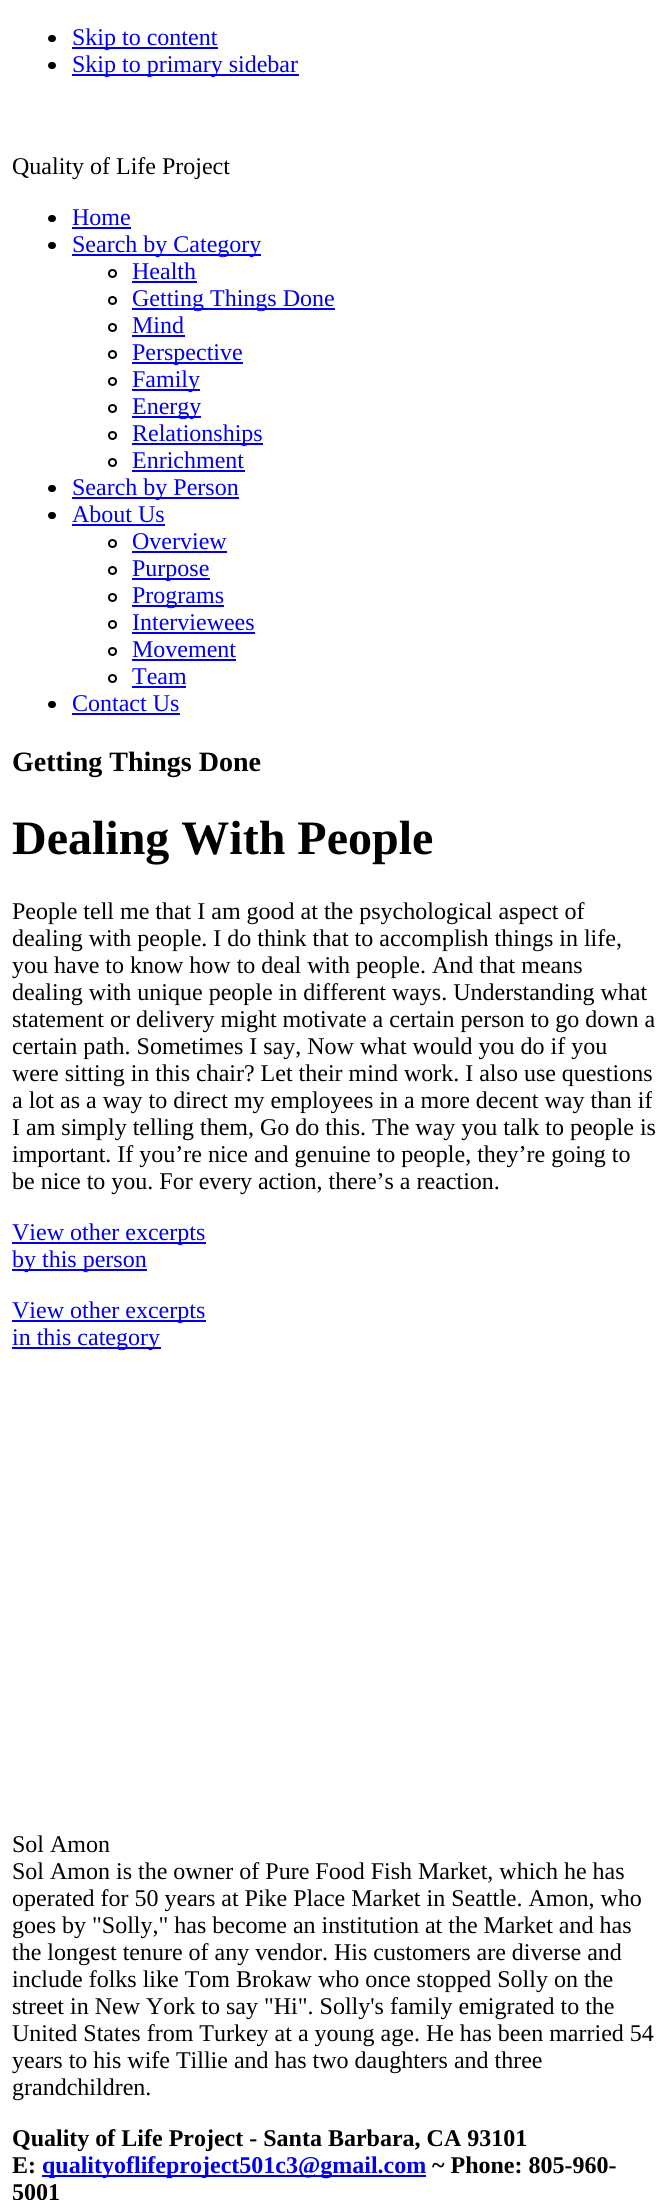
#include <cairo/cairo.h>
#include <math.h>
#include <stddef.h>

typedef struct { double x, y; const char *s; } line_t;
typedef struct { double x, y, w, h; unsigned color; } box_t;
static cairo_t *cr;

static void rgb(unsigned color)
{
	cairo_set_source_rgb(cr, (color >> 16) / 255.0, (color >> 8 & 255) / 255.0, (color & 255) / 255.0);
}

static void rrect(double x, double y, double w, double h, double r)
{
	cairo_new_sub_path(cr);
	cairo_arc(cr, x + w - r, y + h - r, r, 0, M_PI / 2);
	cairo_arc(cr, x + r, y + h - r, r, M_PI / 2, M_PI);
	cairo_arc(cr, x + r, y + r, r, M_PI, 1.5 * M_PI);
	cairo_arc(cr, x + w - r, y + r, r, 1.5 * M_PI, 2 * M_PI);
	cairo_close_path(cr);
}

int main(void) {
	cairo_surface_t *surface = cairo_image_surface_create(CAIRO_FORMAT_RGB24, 668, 2200);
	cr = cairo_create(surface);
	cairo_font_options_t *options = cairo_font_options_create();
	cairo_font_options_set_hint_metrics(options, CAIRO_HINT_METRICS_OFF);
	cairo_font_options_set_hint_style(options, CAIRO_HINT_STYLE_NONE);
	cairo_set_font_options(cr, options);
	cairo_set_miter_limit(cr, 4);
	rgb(0xffffff);
	cairo_paint(cr);
	rgb(0x000000);
	rrect(48, 35, 8, 7, 3.5);
	cairo_fill(cr);
	rgb(0x0000ee);
	cairo_rectangle(cr, 72, 47, 146, 2);
	cairo_fill(cr);
	rgb(0x000000);
	rrect(48, 62, 8, 7, 3.5);
	cairo_fill(cr);
	rgb(0x0000ee);
	cairo_rectangle(cr, 72, 74, 227, 2);
	cairo_fill(cr);
	rgb(0x000000);
	rrect(48, 215, 8, 7, 3.5);
	cairo_fill(cr);
	rgb(0x0000ee);
	cairo_rectangle(cr, 72, 227, 59, 2);
	cairo_fill(cr);
	rgb(0x000000);
	rrect(48, 242, 8, 7, 3.5);
	cairo_fill(cr);
	rgb(0x0000ee);
	cairo_rectangle(cr, 72, 254, 189, 2);
	cairo_fill(cr);
	cairo_arc(cr, 112.5, 273.5, 3.5, 0, 2 * M_PI);
	rgb(0x000000);
	cairo_stroke(cr);
	rgb(0x0000ee);
	cairo_rectangle(cr, 132, 281, 65, 2);
	cairo_fill(cr);
	cairo_arc(cr, 112.5, 300.5, 3.5, 0, 2 * M_PI);
	rgb(0x000000);
	cairo_stroke(cr);
	rgb(0x0000ee);
	cairo_rectangle(cr, 132, 308, 203, 2);
	cairo_fill(cr);
	cairo_arc(cr, 112.5, 327.5, 3.5, 0, 2 * M_PI);
	rgb(0x000000);
	cairo_stroke(cr);
	rgb(0x0000ee);
	cairo_rectangle(cr, 132, 335, 53, 2);
	cairo_fill(cr);
	cairo_arc(cr, 112.5, 354.5, 3.5, 0, 2 * M_PI);
	rgb(0x000000);
	cairo_stroke(cr);
	rgb(0x0000ee);
	cairo_rectangle(cr, 132, 362, 111, 2);
	cairo_fill(cr);
	cairo_arc(cr, 112.5, 381.5, 3.5, 0, 2 * M_PI);
	rgb(0x000000);
	cairo_stroke(cr);
	rgb(0x0000ee);
	cairo_rectangle(cr, 132, 389, 68, 2);
	cairo_fill(cr);
	cairo_arc(cr, 112.5, 408.5, 3.5, 0, 2 * M_PI);
	rgb(0x000000);
	cairo_stroke(cr);
	rgb(0x0000ee);
	cairo_rectangle(cr, 132, 416, 69, 2);
	cairo_fill(cr);
	cairo_arc(cr, 112.5, 435.5, 3.5, 0, 2 * M_PI);
	rgb(0x000000);
	cairo_stroke(cr);
	rgb(0x0000ee);
	cairo_rectangle(cr, 132, 443, 131, 2);
	cairo_fill(cr);
	cairo_arc(cr, 112.5, 462.5, 3.5, 0, 2 * M_PI);
	rgb(0x000000);
	cairo_stroke(cr);
	rgb(0x0000ee);
	cairo_rectangle(cr, 132, 470, 113, 2);
	cairo_fill(cr);
	rgb(0x000000);
	rrect(48, 485, 8, 7, 3.5);
	cairo_fill(cr);
	rgb(0x0000ee);
	cairo_rectangle(cr, 72, 497, 167, 2);
	cairo_fill(cr);
	rgb(0x000000);
	rrect(48, 512, 8, 7, 3.5);
	cairo_fill(cr);
	rgb(0x0000ee);
	cairo_rectangle(cr, 72, 524, 93, 2);
	cairo_fill(cr);
	cairo_arc(cr, 112.5, 543.5, 3.5, 0, 2 * M_PI);
	rgb(0x000000);
	cairo_stroke(cr);
	rgb(0x0000ee);
	cairo_rectangle(cr, 132, 551, 95, 2);
	cairo_fill(cr);
	cairo_arc(cr, 112.5, 570.5, 3.5, 0, 2 * M_PI);
	rgb(0x000000);
	cairo_stroke(cr);
	rgb(0x0000ee);
	cairo_rectangle(cr, 132, 578, 78, 2);
	cairo_fill(cr);
	cairo_arc(cr, 112.5, 597.5, 3.5, 0, 2 * M_PI);
	rgb(0x000000);
	cairo_stroke(cr);
	rgb(0x0000ee);
	cairo_rectangle(cr, 132, 605, 92, 2);
	cairo_fill(cr);
	cairo_arc(cr, 112.5, 624.5, 3.5, 0, 2 * M_PI);
	rgb(0x000000);
	cairo_stroke(cr);
	rgb(0x0000ee);
	cairo_rectangle(cr, 132, 632, 123, 2);
	cairo_fill(cr);
	cairo_arc(cr, 112.5, 651.5, 3.5, 0, 2 * M_PI);
	rgb(0x000000);
	cairo_stroke(cr);
	rgb(0x0000ee);
	cairo_rectangle(cr, 132, 659, 104, 2);
	cairo_fill(cr);
	cairo_arc(cr, 112.5, 678.5, 3.5, 0, 2 * M_PI);
	rgb(0x000000);
	cairo_stroke(cr);
	rgb(0x0000ee);
	cairo_rectangle(cr, 132, 686, 54, 2);
	cairo_fill(cr);
	rgb(0x000000);
	rrect(48, 701, 8, 7, 3.5);
	cairo_fill(cr);
	{
		static const box_t items[] = {
			{72, 713, 108, 2, 0x0000ee},
			{12, 1242, 194, 2, 0x0000ee},
			{12, 1269, 135, 2, 0x0000ee},
			{12, 1320, 194, 2, 0x0000ee},
			{12, 1347, 149, 2, 0x0000ee},
			{42, 2175, 384, 2, 0x0000ee},
		};
		for (size_t i = 0; i < sizeof items / sizeof *items; i++) {
			rgb(items[i].color);
			cairo_rectangle(cr, items[i].x, items[i].y, items[i].w, items[i].h);
			cairo_fill(cr);
		}
	}
	cairo_select_font_face(cr, "Liberation Serif", CAIRO_FONT_SLANT_NORMAL, CAIRO_FONT_WEIGHT_NORMAL);
	cairo_set_font_size(cr, 24);
	cairo_move_to(cr, 72, 45);
	cairo_show_text(cr, "Skip to content");
	cairo_move_to(cr, 72, 72);
	cairo_show_text(cr, "Skip to primary sidebar");
	rgb(0x000000);
	cairo_move_to(cr, 12, 174);
	cairo_show_text(cr, "Quality of Life Project");
	rgb(0x0000ee);
	{
		static const line_t items[] = {
			{72, 225, "Home"},
			{72, 252, "Search by Category"},
			{132, 279, "Health"},
			{132, 306, "Getting Things Done"},
			{132, 333, "Mind"},
			{132, 360, "Perspective"},
			{132, 387, "Family"},
			{132, 414, "Energy"},
			{132, 441, "Relationships"},
			{132, 468, "Enrichment"},
			{72, 495, "Search by Person"},
			{72, 522, "About Us"},
			{132, 549, "Overview"},
			{132, 576, "Purpose"},
			{132, 603, "Programs"},
			{132, 630, "Interviewees"},
			{132, 657, "Movement"},
			{132, 684, "Team"},
			{72, 711, "Contact Us"},
		};
		for (size_t i = 0; i < sizeof items / sizeof *items; i++) {
			cairo_move_to(cr, items[i].x, items[i].y);
			cairo_show_text(cr, items[i].s);
		}
	}
	cairo_select_font_face(cr, "Liberation Serif", CAIRO_FONT_SLANT_NORMAL, CAIRO_FONT_WEIGHT_BOLD);
	cairo_set_font_size(cr, 28);
	rgb(0x000000);
	cairo_move_to(cr, 12, 771);
	cairo_show_text(cr, "Getting Things Done");
	cairo_set_font_size(cr, 48);
	cairo_move_to(cr, 12, 854);
	cairo_show_text(cr, "Dealing With People");
	cairo_select_font_face(cr, "Liberation Serif", CAIRO_FONT_SLANT_NORMAL, CAIRO_FONT_WEIGHT_NORMAL);
	cairo_set_font_size(cr, 24);
	{
		static const line_t items[] = {
			{12, 919, "People tell me that I am good at the psychological aspect of"},
			{12, 946, "dealing with people. I do think that to accomplish things in life,"},
			{12, 973, "you have to know how to deal with people. And that means"},
			{12, 1000, "dealing with unique people in different ways. Understanding what"},
			{12, 1027, "statement or delivery might motivate a certain person to go down a"},
			{12, 1054, "certain path. Sometimes I say, Now what would you do if you"},
			{12, 1081, "were sitting in this chair? Let their mind work. I also use questions"},
			{12, 1108, "a lot as a way to direct my employees in a more decent way than if"},
			{12, 1135, "I am simply telling them, Go do this. The way you talk to people is"},
			{12, 1162, "important. If you’re nice and genuine to people, they’re going to"},
			{12, 1189, "be nice to you. For every action, there’s a reaction."},
		};
		for (size_t i = 0; i < sizeof items / sizeof *items; i++) {
			cairo_move_to(cr, items[i].x, items[i].y);
			cairo_show_text(cr, items[i].s);
		}
	}
	rgb(0x0000ee);
	{
		static const line_t items[] = {
			{12, 1240, "View other excerpts"},
			{12, 1267, "by this person"},
			{12, 1318, "View other excerpts"},
			{12, 1345, "in this category"},
		};
		for (size_t i = 0; i < sizeof items / sizeof *items; i++) {
			cairo_move_to(cr, items[i].x, items[i].y);
			cairo_show_text(cr, items[i].s);
		}
	}
	rgb(0x000000);
	{
		static const line_t items[] = {
			{12, 1852, "Sol Amon"},
			{12, 1879, "Sol Amon is the owner of Pure Food Fish Market, which he has"},
			{12, 1906, "operated for 50 years at Pike Place Market in Seattle. Amon, who"},
			{12, 1933, "goes by \"Solly,\" has become an institution at the Market and has"},
			{12, 1960, "the longest tenure of any vendor. His customers are diverse and"},
			{12, 1987, "include folks like Tom Brokaw who once stopped Solly on the"},
			{12, 2014, "street in New York to say \"Hi\". Solly's family emigrated to the"},
			{12, 2041, "United States from Turkey at a young age. He has been married 54"},
			{12, 2068, "years to his wife Tillie and has two daughters and three"},
			{12, 2095, "grandchildren."},
		};
		for (size_t i = 0; i < sizeof items / sizeof *items; i++) {
			cairo_move_to(cr, items[i].x, items[i].y);
			cairo_show_text(cr, items[i].s);
		}
	}
	cairo_select_font_face(cr, "Liberation Serif", CAIRO_FONT_SLANT_NORMAL, CAIRO_FONT_WEIGHT_BOLD);
	cairo_move_to(cr, 12, 2146);
	cairo_show_text(cr, "Quality of Life Project - Santa Barbara, CA 93101");
	cairo_move_to(cr, 12, 2173);
	cairo_show_text(cr, "E:");
	rgb(0x0000ee);
	cairo_move_to(cr, 42, 2173);
	cairo_show_text(cr, "qualityoflifeproject501c3@gmail.com");
	rgb(0x000000);
	cairo_move_to(cr, 432, 2173);
	cairo_show_text(cr, "~ Phone: 805-960-");
	cairo_move_to(cr, 12, 2200);
	cairo_show_text(cr, "5001");
	cairo_surface_write_to_png(surface, "page.png");
	cairo_font_options_destroy(options);
	cairo_destroy(cr);
	cairo_surface_destroy(surface);
	return 0;
}
